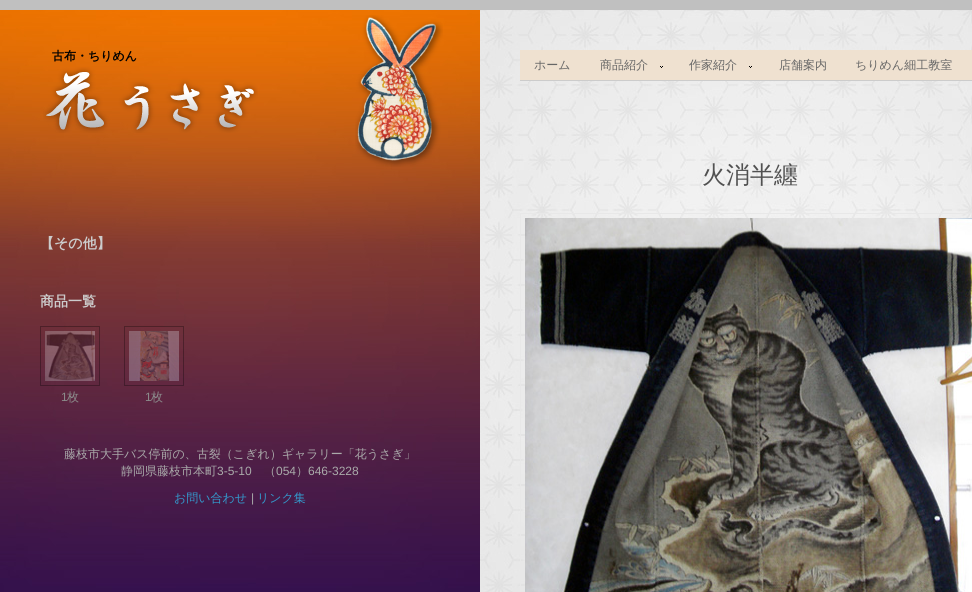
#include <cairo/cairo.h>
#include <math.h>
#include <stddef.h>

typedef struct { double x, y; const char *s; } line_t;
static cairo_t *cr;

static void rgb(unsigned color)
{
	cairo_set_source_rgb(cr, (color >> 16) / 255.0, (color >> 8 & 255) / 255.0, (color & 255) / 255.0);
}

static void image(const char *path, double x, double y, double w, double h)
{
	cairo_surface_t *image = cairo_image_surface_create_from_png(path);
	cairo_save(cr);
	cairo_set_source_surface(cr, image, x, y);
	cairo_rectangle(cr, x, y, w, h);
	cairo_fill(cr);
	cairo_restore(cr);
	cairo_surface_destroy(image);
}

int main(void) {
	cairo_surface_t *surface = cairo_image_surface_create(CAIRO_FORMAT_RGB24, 972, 592);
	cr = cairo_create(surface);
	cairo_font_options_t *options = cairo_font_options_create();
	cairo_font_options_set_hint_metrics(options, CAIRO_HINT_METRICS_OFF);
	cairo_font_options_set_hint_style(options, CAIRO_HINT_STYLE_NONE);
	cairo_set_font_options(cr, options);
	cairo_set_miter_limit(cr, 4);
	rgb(0xc0c0c0);
	cairo_paint(cr);
	image("img/1.png", 0, 10, 972, 582);
	image("img/2.png", 355, 15, 88, 152);
	image("img/3.png", 43, 67, 215, 66);
	cairo_rectangle(cr, 40.5, 326.5, 59, 59);
	cairo_set_source_rgba(cr, 0, 0, 0, 0.3);
	cairo_set_line_width(cr, 1);
	cairo_stroke(cr);
	image("img/4.png", 45, 331, 50, 50);
	cairo_rectangle(cr, 124.5, 326.5, 59, 59);
	cairo_stroke(cr);
	image("img/5.png", 129, 331, 50, 50);
	rgb(0xefe1d0);
	cairo_rectangle(cr, 520, 50, 452, 30);
	cairo_fill(cr);
	rgb(0xcccccc);
	cairo_rectangle(cr, 520, 80, 452, 1);
	cairo_fill(cr);
	image("img/6.png", 660, 66, 3, 2);
	image("img/6.png", 749, 66, 3, 2);
	cairo_rectangle(cr, 520.5, 213.5, 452, 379);
	rgb(0xe8e8e8);
	cairo_stroke(cr);
	image("img/7.png", 525, 218, 447, 374);
	cairo_select_font_face(cr, "WenQuanYi Zen Hei", CAIRO_FONT_SLANT_NORMAL, CAIRO_FONT_WEIGHT_BOLD);
	cairo_set_font_size(cr, 12);
	rgb(0x000000);
	cairo_move_to(cr, 52, 60);
	cairo_show_text(cr, "古布・ちりめん");
	cairo_set_font_size(cr, 14);
	rgb(0xcccccc);
	cairo_move_to(cr, 40, 248);
	cairo_show_text(cr, "【その他】");
	cairo_move_to(cr, 40, 306);
	cairo_show_text(cr, "商品一覧");
	cairo_select_font_face(cr, "Liberation Sans", CAIRO_FONT_SLANT_NORMAL, CAIRO_FONT_WEIGHT_NORMAL);
	cairo_set_font_size(cr, 12);
	rgb(0x8b8b8b);
	cairo_move_to(cr, 61, 401);
	cairo_show_text(cr, "1");
	cairo_select_font_face(cr, "WenQuanYi Zen Hei Medium", CAIRO_FONT_SLANT_NORMAL, CAIRO_FONT_WEIGHT_NORMAL);
	cairo_move_to(cr, 67, 401);
	cairo_show_text(cr, "枚");
	cairo_select_font_face(cr, "Liberation Sans", CAIRO_FONT_SLANT_NORMAL, CAIRO_FONT_WEIGHT_NORMAL);
	cairo_move_to(cr, 145, 401);
	cairo_show_text(cr, "1");
	cairo_select_font_face(cr, "WenQuanYi Zen Hei Medium", CAIRO_FONT_SLANT_NORMAL, CAIRO_FONT_WEIGHT_NORMAL);
	cairo_move_to(cr, 151, 401);
	cairo_show_text(cr, "枚");
	rgb(0xaaaaaa);
	cairo_move_to(cr, 64, 458);
	cairo_show_text(cr, "藤枝市大手バス停前の、古裂（こぎれ）ギャラリー「花うさぎ」");
	cairo_move_to(cr, 121, 475);
	cairo_show_text(cr, "静岡県藤枝市本町");
	cairo_select_font_face(cr, "Liberation Sans", CAIRO_FONT_SLANT_NORMAL, CAIRO_FONT_WEIGHT_NORMAL);
	cairo_move_to(cr, 217, 475);
	cairo_show_text(cr, "3-5-10");
	cairo_select_font_face(cr, "WenQuanYi Zen Hei Medium", CAIRO_FONT_SLANT_NORMAL, CAIRO_FONT_WEIGHT_NORMAL);
	cairo_move_to(cr, 264, 475);
	cairo_show_text(cr, "（");
	cairo_select_font_face(cr, "Liberation Sans", CAIRO_FONT_SLANT_NORMAL, CAIRO_FONT_WEIGHT_NORMAL);
	cairo_move_to(cr, 276, 475);
	cairo_show_text(cr, "054");
	cairo_select_font_face(cr, "WenQuanYi Zen Hei Medium", CAIRO_FONT_SLANT_NORMAL, CAIRO_FONT_WEIGHT_NORMAL);
	cairo_move_to(cr, 296, 475);
	cairo_show_text(cr, "）");
	cairo_select_font_face(cr, "Liberation Sans", CAIRO_FONT_SLANT_NORMAL, CAIRO_FONT_WEIGHT_NORMAL);
	cairo_move_to(cr, 308, 475);
	cairo_show_text(cr, "646-3228");
	cairo_select_font_face(cr, "WenQuanYi Zen Hei Medium", CAIRO_FONT_SLANT_NORMAL, CAIRO_FONT_WEIGHT_NORMAL);
	rgb(0x3399cc);
	cairo_move_to(cr, 174, 502);
	cairo_show_text(cr, "お問い合わせ");
	cairo_select_font_face(cr, "Liberation Sans", CAIRO_FONT_SLANT_NORMAL, CAIRO_FONT_WEIGHT_NORMAL);
	rgb(0xaaaaaa);
	cairo_move_to(cr, 251, 502);
	cairo_show_text(cr, "|");
	cairo_select_font_face(cr, "WenQuanYi Zen Hei Medium", CAIRO_FONT_SLANT_NORMAL, CAIRO_FONT_WEIGHT_NORMAL);
	rgb(0x3399cc);
	cairo_move_to(cr, 257, 502);
	cairo_show_text(cr, "リンク集");
	rgb(0x666666);
	{
		static const line_t items[] = {
			{534, 69, "ホーム"},
			{600, 69, "商品紹介"},
			{689, 69, "作家紹介"},
			{779, 69, "店舗案内"},
			{855, 69, "ちりめん細工教室"},
		};
		for (size_t i = 0; i < sizeof items / sizeof *items; i++) {
			cairo_move_to(cr, items[i].x, items[i].y);
			cairo_show_text(cr, items[i].s);
		}
	}
	cairo_set_font_size(cr, 24);
	rgb(0x515151);
	cairo_move_to(cr, 702, 183);
	cairo_show_text(cr, "火消半纏");
	cairo_surface_write_to_png(surface, "page.png");
	cairo_font_options_destroy(options);
	cairo_destroy(cr);
	cairo_surface_destroy(surface);
	return 0;
}
